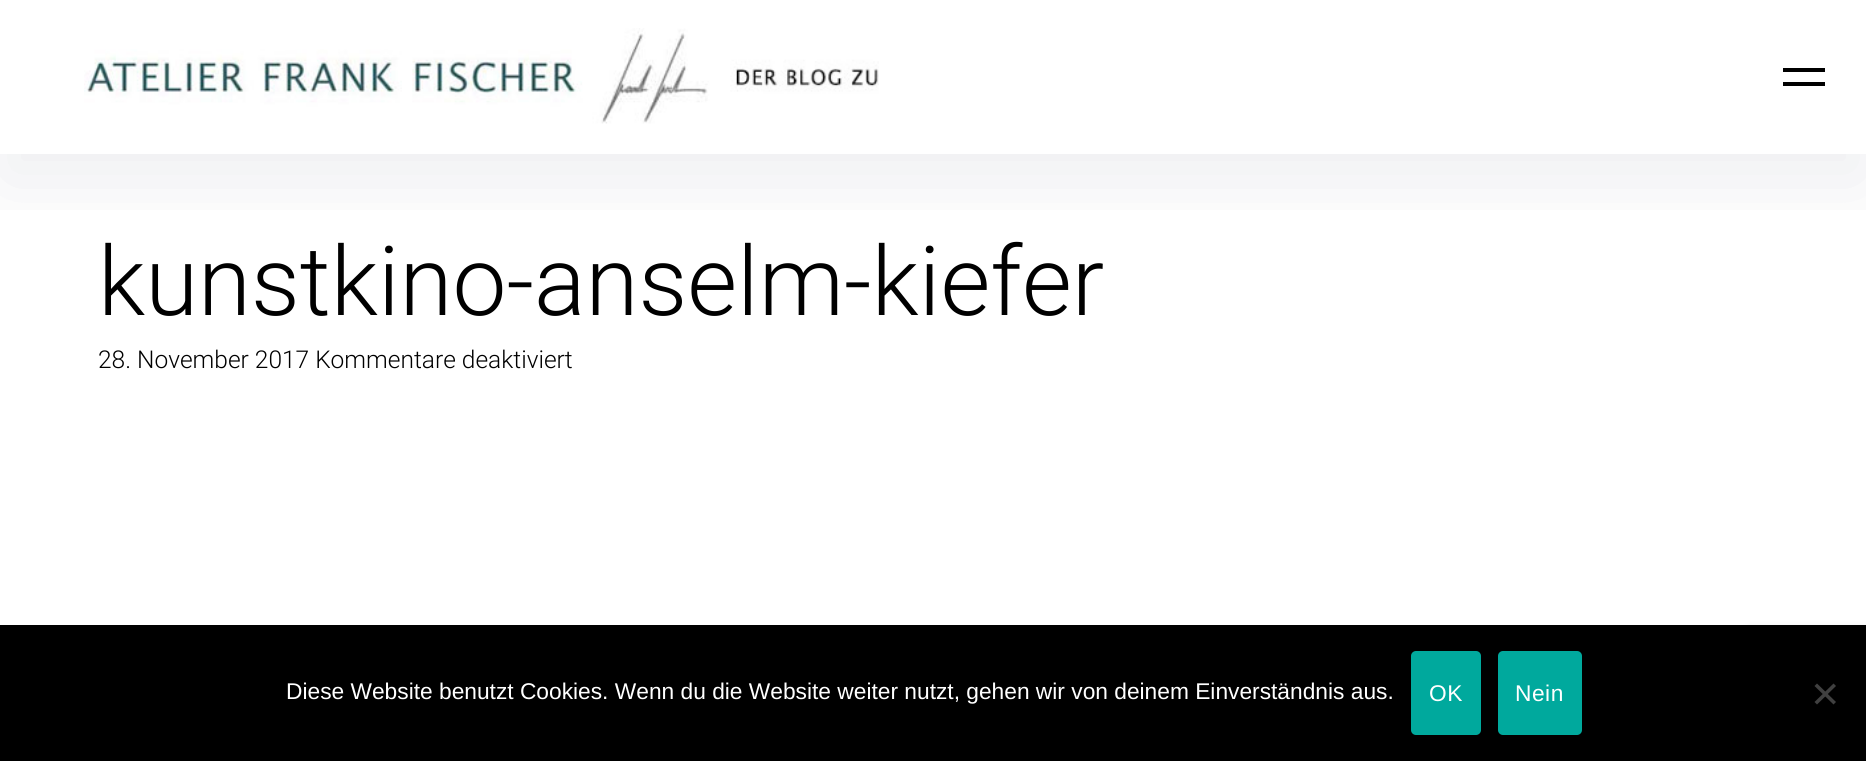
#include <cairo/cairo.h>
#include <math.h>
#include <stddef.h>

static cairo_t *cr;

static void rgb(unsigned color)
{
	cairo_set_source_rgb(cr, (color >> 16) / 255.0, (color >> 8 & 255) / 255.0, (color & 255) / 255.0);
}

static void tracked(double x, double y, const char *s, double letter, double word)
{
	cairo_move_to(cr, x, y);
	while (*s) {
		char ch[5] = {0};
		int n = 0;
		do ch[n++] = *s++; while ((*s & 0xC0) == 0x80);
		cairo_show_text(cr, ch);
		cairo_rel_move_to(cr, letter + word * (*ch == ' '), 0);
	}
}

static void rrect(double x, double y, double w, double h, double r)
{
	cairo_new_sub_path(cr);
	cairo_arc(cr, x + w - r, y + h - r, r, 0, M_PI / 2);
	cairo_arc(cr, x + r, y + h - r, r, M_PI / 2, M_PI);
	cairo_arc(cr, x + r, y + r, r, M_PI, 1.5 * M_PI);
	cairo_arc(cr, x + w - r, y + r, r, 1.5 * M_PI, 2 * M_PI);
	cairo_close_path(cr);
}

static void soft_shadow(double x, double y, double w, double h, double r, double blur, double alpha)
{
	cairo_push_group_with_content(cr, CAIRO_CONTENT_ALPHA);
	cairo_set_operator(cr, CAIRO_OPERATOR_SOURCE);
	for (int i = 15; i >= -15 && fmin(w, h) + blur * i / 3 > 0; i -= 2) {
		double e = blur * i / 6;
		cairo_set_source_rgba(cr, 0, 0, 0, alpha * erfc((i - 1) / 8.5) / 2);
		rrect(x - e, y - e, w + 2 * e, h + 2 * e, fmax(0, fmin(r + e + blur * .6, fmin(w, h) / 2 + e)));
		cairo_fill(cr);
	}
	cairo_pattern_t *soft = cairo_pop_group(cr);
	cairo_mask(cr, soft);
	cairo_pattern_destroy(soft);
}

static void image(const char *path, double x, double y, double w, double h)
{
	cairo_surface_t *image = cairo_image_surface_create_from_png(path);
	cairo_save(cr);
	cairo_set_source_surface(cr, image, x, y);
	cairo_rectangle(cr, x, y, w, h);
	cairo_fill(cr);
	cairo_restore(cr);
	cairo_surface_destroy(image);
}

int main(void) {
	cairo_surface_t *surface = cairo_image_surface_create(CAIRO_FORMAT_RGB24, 1866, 761);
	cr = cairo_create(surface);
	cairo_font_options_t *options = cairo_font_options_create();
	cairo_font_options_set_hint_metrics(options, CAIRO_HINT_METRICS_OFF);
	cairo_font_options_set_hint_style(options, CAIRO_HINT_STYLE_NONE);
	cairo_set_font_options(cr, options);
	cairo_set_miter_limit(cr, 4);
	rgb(0xffffff);
	cairo_paint(cr);
	cairo_save(cr);
	cairo_rectangle(cr, 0, 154, 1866, 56);
	cairo_clip(cr);
	rgb(0x1f2044);
	soft_shadow(0, 28, 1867, 154, 0, 42, 0.08);
	cairo_restore(cr);
	image("img/1.png", 84, 28, 795, 96);
	rgb(0x000000);
	cairo_rectangle(cr, 1783, 68, 42, 4);
	cairo_fill(cr);
	cairo_rectangle(cr, 1783, 82, 42, 4);
	cairo_fill(cr);
	rgb(0x808080);
	soft_shadow(1745, 632, 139, 105, 4, 4.5, 1);
	rgb(0x000000);
	cairo_rectangle(cr, 0, 625, 1866, 136);
	cairo_fill(cr);
	rgb(0x00a99d);
	rrect(1411, 651, 70, 84, 5);
	cairo_fill(cr);
	rrect(1498, 651, 84, 84, 5);
	cairo_fill(cr);
	rgb(0x404040);
	cairo_new_path(cr);
	cairo_move_to(cr, 1833.5, 683.5);
	cairo_line_to(cr, 1836, 686);
	cairo_line_to(cr, 1817, 704.5);
	cairo_line_to(cr, 1814.5, 702);
	cairo_close_path(cr);
	cairo_fill(cr);
	cairo_new_path(cr);
	cairo_move_to(cr, 1814.5, 686);
	cairo_line_to(cr, 1817, 683.5);
	cairo_line_to(cr, 1836, 702);
	cairo_line_to(cr, 1833.5, 704.5);
	cairo_close_path(cr);
	cairo_fill(cr);
	cairo_select_font_face(cr, "Roboto Light", CAIRO_FONT_SLANT_NORMAL, CAIRO_FONT_WEIGHT_NORMAL);
	cairo_set_font_size(cr, 96.25);
	rgb(0x000000);
	cairo_move_to(cr, 98, 315);
	cairo_show_text(cr, "kunstkino-anselm-kiefer");
	cairo_set_font_size(cr, 24.5);
	cairo_move_to(cr, 98, 368);
	cairo_show_text(cr, "28. November 2017 Kommentare deaktiviert");
	cairo_select_font_face(cr, "Liberation Sans", CAIRO_FONT_SLANT_NORMAL, CAIRO_FONT_WEIGHT_NORMAL);
	cairo_set_font_size(cr, 22.75);
	rgb(0xffffff);
	cairo_move_to(cr, 286, 699);
	cairo_show_text(cr, "Diese Website benutzt Cookies. Wenn du die Website weiter nutzt, gehen wir von deinem Einverständnis aus.");
	tracked(1429, 701, "OK", 0.5, 0);
	tracked(1515, 701, "Nein", 0.5, 0);
	cairo_surface_write_to_png(surface, "page.png");
	cairo_font_options_destroy(options);
	cairo_destroy(cr);
	cairo_surface_destroy(surface);
	return 0;
}
